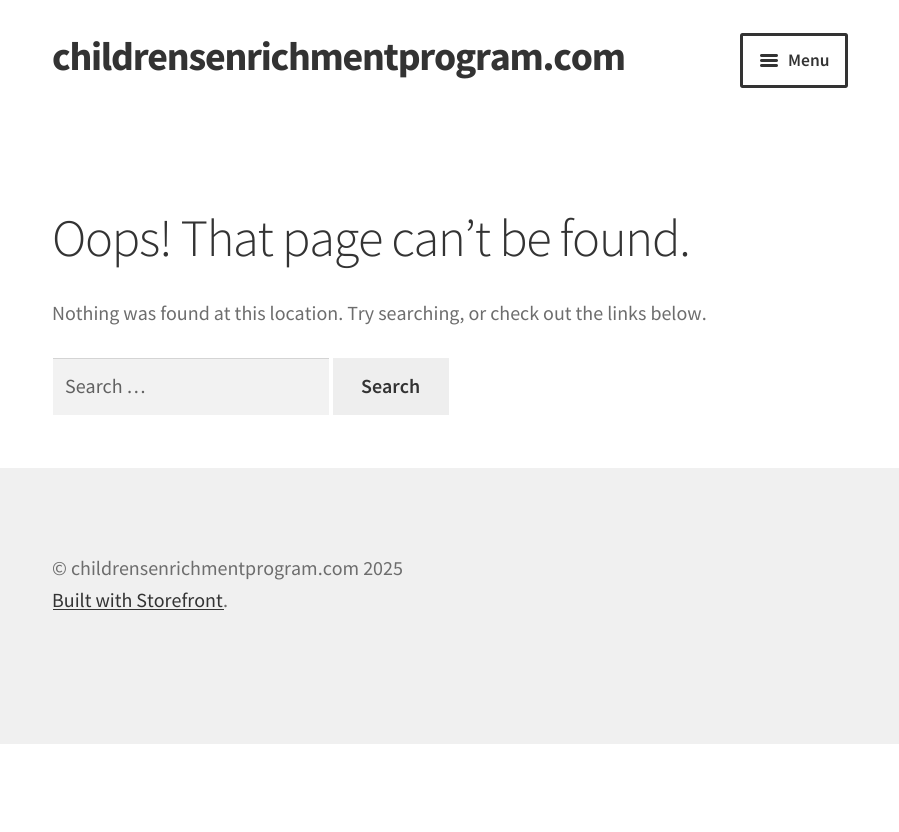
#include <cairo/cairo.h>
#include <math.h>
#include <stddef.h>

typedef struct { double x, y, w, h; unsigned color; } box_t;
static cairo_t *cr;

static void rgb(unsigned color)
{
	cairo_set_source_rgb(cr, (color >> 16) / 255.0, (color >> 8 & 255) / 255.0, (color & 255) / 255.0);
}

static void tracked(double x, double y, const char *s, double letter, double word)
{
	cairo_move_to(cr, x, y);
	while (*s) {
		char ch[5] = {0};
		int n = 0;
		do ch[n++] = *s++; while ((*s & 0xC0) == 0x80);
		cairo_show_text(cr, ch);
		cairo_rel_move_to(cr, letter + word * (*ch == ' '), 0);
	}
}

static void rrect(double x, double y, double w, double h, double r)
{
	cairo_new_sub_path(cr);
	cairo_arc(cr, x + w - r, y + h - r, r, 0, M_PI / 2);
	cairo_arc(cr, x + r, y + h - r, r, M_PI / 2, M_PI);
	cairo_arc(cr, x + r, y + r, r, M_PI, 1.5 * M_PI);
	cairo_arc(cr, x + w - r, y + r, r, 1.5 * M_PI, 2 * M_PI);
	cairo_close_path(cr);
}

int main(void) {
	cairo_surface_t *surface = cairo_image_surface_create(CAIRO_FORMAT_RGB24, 899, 832);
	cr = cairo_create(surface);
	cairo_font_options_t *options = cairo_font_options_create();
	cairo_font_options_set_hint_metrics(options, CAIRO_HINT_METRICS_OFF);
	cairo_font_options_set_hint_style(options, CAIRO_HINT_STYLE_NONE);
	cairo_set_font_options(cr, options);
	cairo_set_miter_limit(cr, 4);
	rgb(0xffffff);
	cairo_paint(cr);
	rrect(741.5, 34.5, 105, 52, 1);
	rgb(0x333333);
	cairo_set_line_width(cr, 3);
	cairo_stroke(cr);
	rrect(760, 54, 18, 3, 1.5);
	cairo_fill(cr);
	rrect(760, 59, 18, 3, 1.5);
	cairo_fill(cr);
	rrect(760, 64, 18, 3, 1.5);
	cairo_fill(cr);
	{
		static const box_t items[] = {
			{53, 359, 276, 56, 0xf2f2f2},
			{53, 358, 276, 1, 0xd4d4d4},
			{333, 358, 116, 57, 0xeeeeee},
			{0, 468, 899, 276, 0xf0f0f0},
			{53, 609, 171, 1, 0x333333},
		};
		for (size_t i = 0; i < sizeof items / sizeof *items; i++) {
			rgb(items[i].color);
			cairo_rectangle(cr, items[i].x, items[i].y, items[i].w, items[i].h);
			cairo_fill(cr);
		}
	}
	cairo_select_font_face(cr, "Source Sans Pro", CAIRO_FONT_SLANT_NORMAL, CAIRO_FONT_WEIGHT_BOLD);
	cairo_set_font_size(cr, 40);
	tracked(52, 70, "childrensenrichmentprogram.com", -1.25, 0);
	cairo_select_font_face(cr, "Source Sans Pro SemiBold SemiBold", CAIRO_FONT_SLANT_NORMAL, CAIRO_FONT_WEIGHT_NORMAL);
	cairo_set_font_size(cr, 17.5);
	cairo_move_to(cr, 788, 66);
	cairo_show_text(cr, "Menu");
	cairo_select_font_face(cr, "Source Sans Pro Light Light", CAIRO_FONT_SLANT_NORMAL, CAIRO_FONT_WEIGHT_NORMAL);
	cairo_set_font_size(cr, 52.4);
	tracked(52, 256, "Oops! That page can’t be found.", -1.25, 0);
	cairo_select_font_face(cr, "Source Sans Pro", CAIRO_FONT_SLANT_NORMAL, CAIRO_FONT_WEIGHT_NORMAL);
	cairo_set_font_size(cr, 20);
	rgb(0x6d6d6d);
	cairo_move_to(cr, 52, 320);
	cairo_show_text(cr, "Nothing was found at this location. Try searching, or check out the links below.");
	rgb(0x616161);
	cairo_move_to(cr, 65, 393);
	cairo_show_text(cr, "Search …");
	cairo_select_font_face(cr, "Source Sans Pro SemiBold SemiBold", CAIRO_FONT_SLANT_NORMAL, CAIRO_FONT_WEIGHT_NORMAL);
	rgb(0x333333);
	cairo_move_to(cr, 361, 393);
	cairo_show_text(cr, "Search");
	cairo_select_font_face(cr, "Source Sans Pro", CAIRO_FONT_SLANT_NORMAL, CAIRO_FONT_WEIGHT_NORMAL);
	rgb(0x6d6d6d);
	cairo_move_to(cr, 52, 575);
	cairo_show_text(cr, "© childrensenrichmentprogram.com 2025");
	rgb(0x333333);
	cairo_move_to(cr, 52, 607);
	cairo_show_text(cr, "Built with Storefront");
	rgb(0x6d6d6d);
	cairo_move_to(cr, 223, 607);
	cairo_show_text(cr, ".");
	cairo_surface_write_to_png(surface, "page.png");
	cairo_font_options_destroy(options);
	cairo_destroy(cr);
	cairo_surface_destroy(surface);
	return 0;
}
